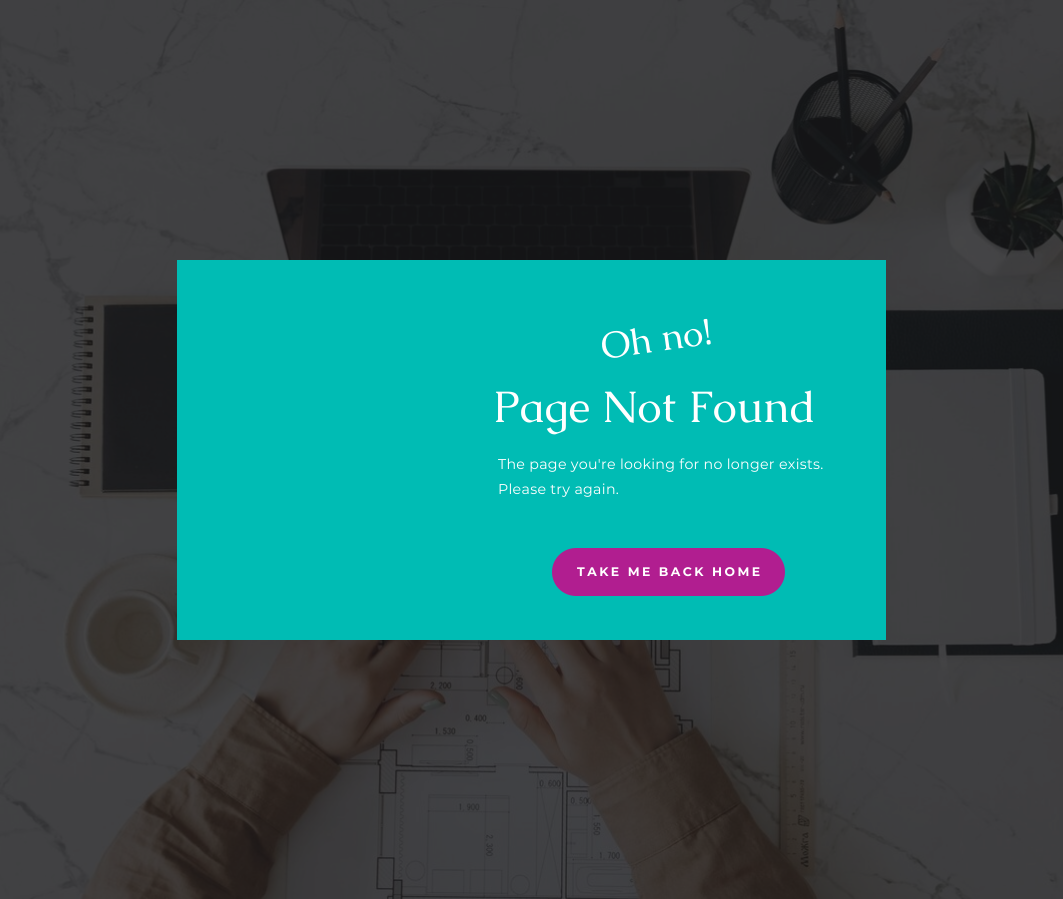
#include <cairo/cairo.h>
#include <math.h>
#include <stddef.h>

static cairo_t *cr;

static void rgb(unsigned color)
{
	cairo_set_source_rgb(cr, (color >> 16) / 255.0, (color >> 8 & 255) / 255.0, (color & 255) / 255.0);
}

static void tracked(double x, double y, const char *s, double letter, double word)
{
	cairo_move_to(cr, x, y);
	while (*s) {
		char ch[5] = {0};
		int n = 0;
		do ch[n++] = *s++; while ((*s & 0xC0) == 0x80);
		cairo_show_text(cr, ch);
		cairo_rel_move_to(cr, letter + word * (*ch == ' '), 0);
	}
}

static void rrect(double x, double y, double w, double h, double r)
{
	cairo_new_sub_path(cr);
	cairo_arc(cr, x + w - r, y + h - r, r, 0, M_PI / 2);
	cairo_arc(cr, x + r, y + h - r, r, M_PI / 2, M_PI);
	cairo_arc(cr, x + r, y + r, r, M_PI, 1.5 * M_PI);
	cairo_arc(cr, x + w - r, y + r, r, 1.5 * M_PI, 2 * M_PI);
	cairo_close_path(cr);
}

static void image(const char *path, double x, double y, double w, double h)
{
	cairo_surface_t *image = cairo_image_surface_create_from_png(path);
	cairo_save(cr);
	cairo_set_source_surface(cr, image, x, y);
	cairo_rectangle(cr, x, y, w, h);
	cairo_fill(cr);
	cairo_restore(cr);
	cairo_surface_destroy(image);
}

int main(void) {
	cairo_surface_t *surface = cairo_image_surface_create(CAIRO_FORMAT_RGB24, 1063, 899);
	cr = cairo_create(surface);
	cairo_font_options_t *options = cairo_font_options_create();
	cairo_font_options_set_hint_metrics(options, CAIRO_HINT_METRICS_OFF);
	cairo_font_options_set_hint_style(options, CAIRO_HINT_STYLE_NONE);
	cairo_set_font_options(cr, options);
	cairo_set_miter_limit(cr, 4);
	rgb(0x19191a);
	cairo_paint(cr);
	image("img/1.png", 0, 0, 1063, 899);
	rgb(0x00bcb4);
	cairo_rectangle(cr, 177, 260, 709, 380);
	cairo_fill(cr);
	rgb(0xb11e90);
	rrect(552, 548, 233, 48, 24);
	cairo_fill(cr);
	cairo_select_font_face(cr, "Caudex", CAIRO_FONT_SLANT_NORMAL, CAIRO_FONT_WEIGHT_NORMAL);
	cairo_set_font_size(cr, 37);
	rgb(0xffffff);
	cairo_save(cr);
	cairo_translate(cr, 603, 359);
	cairo_rotate(cr, -8 * M_PI / 180);
	cairo_move_to(cr, 0, 0);
	cairo_show_text(cr, "Oh no!");
	cairo_restore(cr);
	cairo_set_font_size(cr, 44.25);
	cairo_move_to(cr, 493, 422);
	cairo_show_text(cr, "Page Not Found");
	cairo_select_font_face(cr, "Montserrat", CAIRO_FONT_SLANT_NORMAL, CAIRO_FONT_WEIGHT_NORMAL);
	cairo_set_font_size(cr, 14.2);
	tracked(498, 469, "The page you're looking for no longer exists.", 0.3, 0);
	tracked(498, 494, "Please try again.", 0.3, 0);
	cairo_select_font_face(cr, "Montserrat", CAIRO_FONT_SLANT_NORMAL, CAIRO_FONT_WEIGHT_BOLD);
	cairo_set_font_size(cr, 12.4);
	tracked(577, 576, "TAKE ME BACK HOME", 2.5, 0);
	cairo_surface_write_to_png(surface, "page.png");
	cairo_font_options_destroy(options);
	cairo_destroy(cr);
	cairo_surface_destroy(surface);
	return 0;
}
